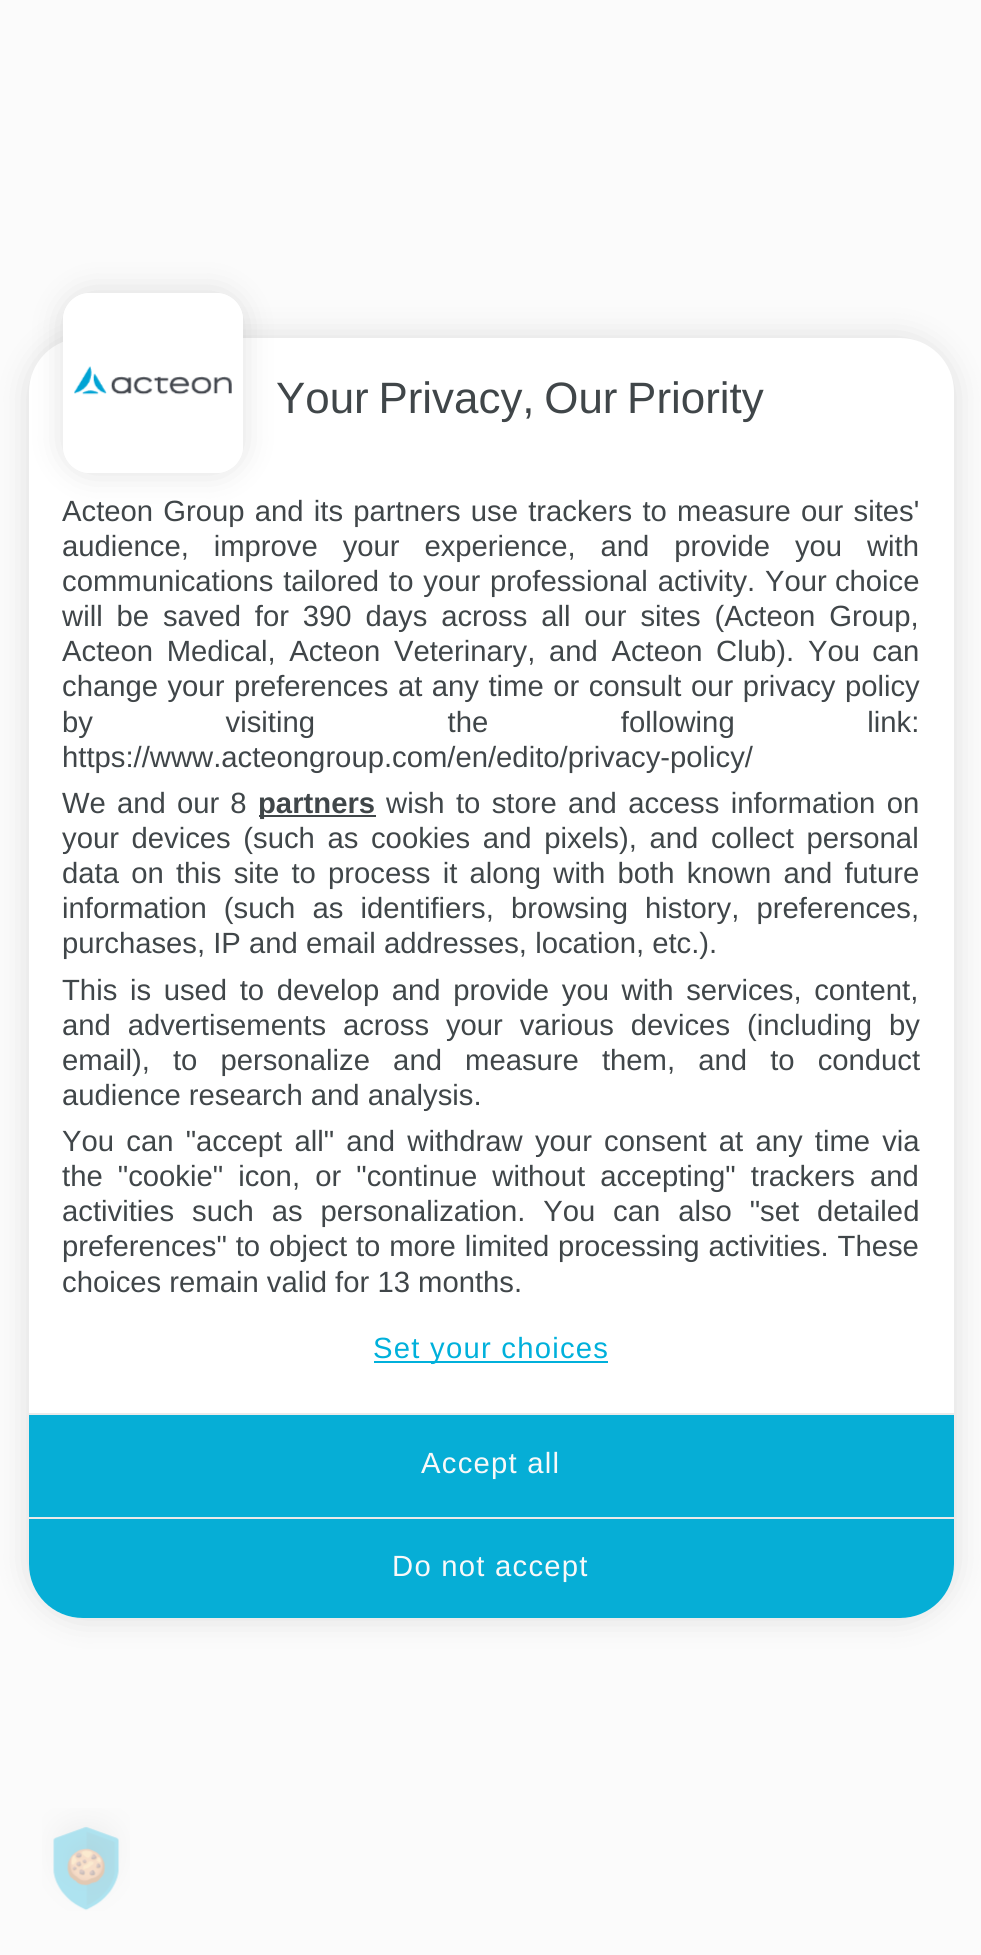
#include <cairo/cairo.h>
#include <math.h>
#include <stddef.h>

typedef struct { double x, y, w, h; unsigned color; } box_t;
static cairo_t *cr;

static void rgb(unsigned color)
{
	cairo_set_source_rgb(cr, (color >> 16) / 255.0, (color >> 8 & 255) / 255.0, (color & 255) / 255.0);
}

static void tracked(double x, double y, const char *s, double letter, double word)
{
	cairo_move_to(cr, x, y);
	while (*s) {
		char ch[5] = {0};
		int n = 0;
		do ch[n++] = *s++; while ((*s & 0xC0) == 0x80);
		cairo_show_text(cr, ch);
		cairo_rel_move_to(cr, letter + word * (*ch == ' '), 0);
	}
}

static void rrect(double x, double y, double w, double h, double r)
{
	cairo_new_sub_path(cr);
	cairo_arc(cr, x + w - r, y + h - r, r, 0, M_PI / 2);
	cairo_arc(cr, x + r, y + h - r, r, M_PI / 2, M_PI);
	cairo_arc(cr, x + r, y + r, r, M_PI, 1.5 * M_PI);
	cairo_arc(cr, x + w - r, y + r, r, 1.5 * M_PI, 2 * M_PI);
	cairo_close_path(cr);
}

static void soft_shadow(double x, double y, double w, double h, double r, double blur, double alpha)
{
	cairo_push_group_with_content(cr, CAIRO_CONTENT_ALPHA);
	cairo_set_operator(cr, CAIRO_OPERATOR_SOURCE);
	for (int i = 15; i >= -15 && fmin(w, h) + blur * i / 3 > 0; i -= 2) {
		double e = blur * i / 6;
		cairo_set_source_rgba(cr, 0, 0, 0, alpha * erfc((i - 1) / 8.5) / 2);
		rrect(x - e, y - e, w + 2 * e, h + 2 * e, fmax(0, fmin(r + e + blur * .6, fmin(w, h) / 2 + e)));
		cairo_fill(cr);
	}
	cairo_pattern_t *soft = cairo_pop_group(cr);
	cairo_mask(cr, soft);
	cairo_pattern_destroy(soft);
}

static void image(const char *path, double x, double y, double w, double h)
{
	cairo_surface_t *image = cairo_image_surface_create_from_png(path);
	cairo_save(cr);
	cairo_set_source_surface(cr, image, x, y);
	cairo_rectangle(cr, x, y, w, h);
	cairo_fill(cr);
	cairo_restore(cr);
	cairo_surface_destroy(image);
}

int main(void) {
	cairo_surface_t *surface = cairo_image_surface_create(CAIRO_FORMAT_RGB24, 981, 1955);
	cr = cairo_create(surface);
	cairo_font_options_t *options = cairo_font_options_create();
	cairo_font_options_set_hint_metrics(options, CAIRO_HINT_METRICS_OFF);
	cairo_font_options_set_hint_style(options, CAIRO_HINT_STYLE_NONE);
	cairo_set_font_options(cr, options);
	cairo_set_miter_limit(cr, 4);
	rgb(0xfbfbfb);
	cairo_paint(cr);
	rgb(0x000000);
	soft_shadow(29, 338, 925, 1280, 54, 17, 0.12);
	rgb(0xffffff);
	rrect(29, 338, 925, 1280, 54);
	cairo_fill(cr);
	rgb(0x000000);
	soft_shadow(63, 293, 180, 180, 27, 17, 0.12);
	rgb(0xffffff);
	rrect(63, 293, 180, 180, 27);
	cairo_fill(cr);
	image("img/1.png", 74, 366, 158, 29);
	rrect(68.5, 298.5, 169, 169, 21.5);
	cairo_set_line_width(cr, 11);
	cairo_stroke(cr);
	{
		static const box_t items[] = {
			{259, 815, 117, 2, 0x404649},
			{374, 1361, 234, 2, 0x00b0db},
			{29, 1415, 925, 102, 0x06aed6},
			{29, 1413, 925, 2, 0xeaeaea},
		};
		for (size_t i = 0; i < sizeof items / sizeof *items; i++) {
			rgb(items[i].color);
			cairo_rectangle(cr, items[i].x, items[i].y, items[i].w, items[i].h);
			cairo_fill(cr);
		}
	}
	rgb(0x06aed6);
	cairo_new_path(cr);
	cairo_move_to(cr, 29, 1517);
	cairo_line_to(cr, 954, 1517);
	cairo_line_to(cr, 954, 1564);
	cairo_curve_to(cr, 954, 1594, 930, 1618, 900, 1618);
	cairo_line_to(cr, 83, 1618);
	cairo_curve_to(cr, 53, 1618, 29, 1594, 29, 1564);
	cairo_close_path(cr);
	cairo_fill(cr);
	rgb(0xeaeaea);
	cairo_rectangle(cr, 29, 1517, 925, 2);
	cairo_fill(cr);
	image("img/2.png", 42, 1808, 88, 103);
	cairo_select_font_face(cr, "Liberation Sans", CAIRO_FONT_SLANT_NORMAL, CAIRO_FONT_WEIGHT_NORMAL);
	cairo_set_font_size(cr, 43.9);
	rgb(0x404649);
	tracked(276, 413, "Your Privacy, Our Priority", 0, -2.5);
	cairo_set_font_size(cr, 29.25);
	tracked(62, 521, "Acteon Group and its partners use trackers to measure our sites'", 0, 2.1);
	tracked(62, 556, "audience, improve your experience, and provide you with", 0, 16.75);
	tracked(62, 591, "communications tailored to your professional activity.", 0, 1.75);
	cairo_move_to(cr, 765, 591);
	cairo_show_text(cr, "Your choice");
	tracked(62, 626, "will be saved for 390 days across all our sites (Acteon Group,", 0, 5.75);
	tracked(62, 661, "Acteon Medical, Acteon Veterinary, and Acteon Club).", 0, 5.5);
	tracked(808, 661, "You can", 0, 4);
	tracked(62, 696, "change your preferences at any time or consult our privacy policy", 0, 1.4);
	tracked(62, 732, "by visiting the following link:", 0, 124.5);
	cairo_move_to(cr, 62, 767);
	cairo_show_text(cr, "https://www.acteongroup.com/en/edito/privacy-policy/");
	tracked(62, 813, "We and our 8", 0, 3);
	cairo_select_font_face(cr, "Liberation Sans", CAIRO_FONT_SLANT_NORMAL, CAIRO_FONT_WEIGHT_BOLD);
	cairo_move_to(cr, 258, 813);
	cairo_show_text(cr, "partners");
	cairo_select_font_face(cr, "Liberation Sans", CAIRO_FONT_SLANT_NORMAL, CAIRO_FONT_WEIGHT_NORMAL);
	tracked(386, 813, "wish to store and access information on", 0, 3.25);
	tracked(62, 848, "your devices (such as cookies and pixels), and collect personal", 0, 4.5);
	tracked(62, 883, "data on this site to process it along with both known and future", 0, 4.1);
	tracked(62, 918, "information (such as identifiers, browsing history, preferences,", 0, 9);
	cairo_move_to(cr, 62, 953);
	cairo_show_text(cr, "purchases, IP and email addresses, location, etc.).");
	tracked(62, 1000, "This is used to develop and provide you with services, content,", 0, 4.5);
	tracked(62, 1035, "and advertisements across your various devices (including by", 0, 8.75);
	tracked(62, 1070, "email), to personalize and measure them, and to conduct", 0, 15);
	cairo_move_to(cr, 62, 1105);
	cairo_show_text(cr, "audience research and analysis.");
	tracked(62, 1151, "You can \"accept all\" and withdraw your consent at any time via", 0, 4.1);
	tracked(62, 1186, "the \"cookie\" icon, or \"continue without accepting\" trackers and", 0, 7);
	tracked(62, 1221, "activities such as personalization. You can also \"set detailed", 0, 9.75);
	tracked(62, 1256, "preferences\" to object to more limited processing activities. These", 0, 0.75);
	cairo_move_to(cr, 62, 1292);
	cairo_show_text(cr, "choices remain valid for 13 months.");
	rgb(0x00b0db);
	tracked(373, 1358, "Set your choices", 1.25, 0);
	rgb(0xf9f9f9);
	tracked(421, 1473, "Accept all", 1.25, 0);
	tracked(392, 1576, "Do not accept", 1.25, 0);
	cairo_surface_write_to_png(surface, "page.png");
	cairo_font_options_destroy(options);
	cairo_destroy(cr);
	cairo_surface_destroy(surface);
	return 0;
}
